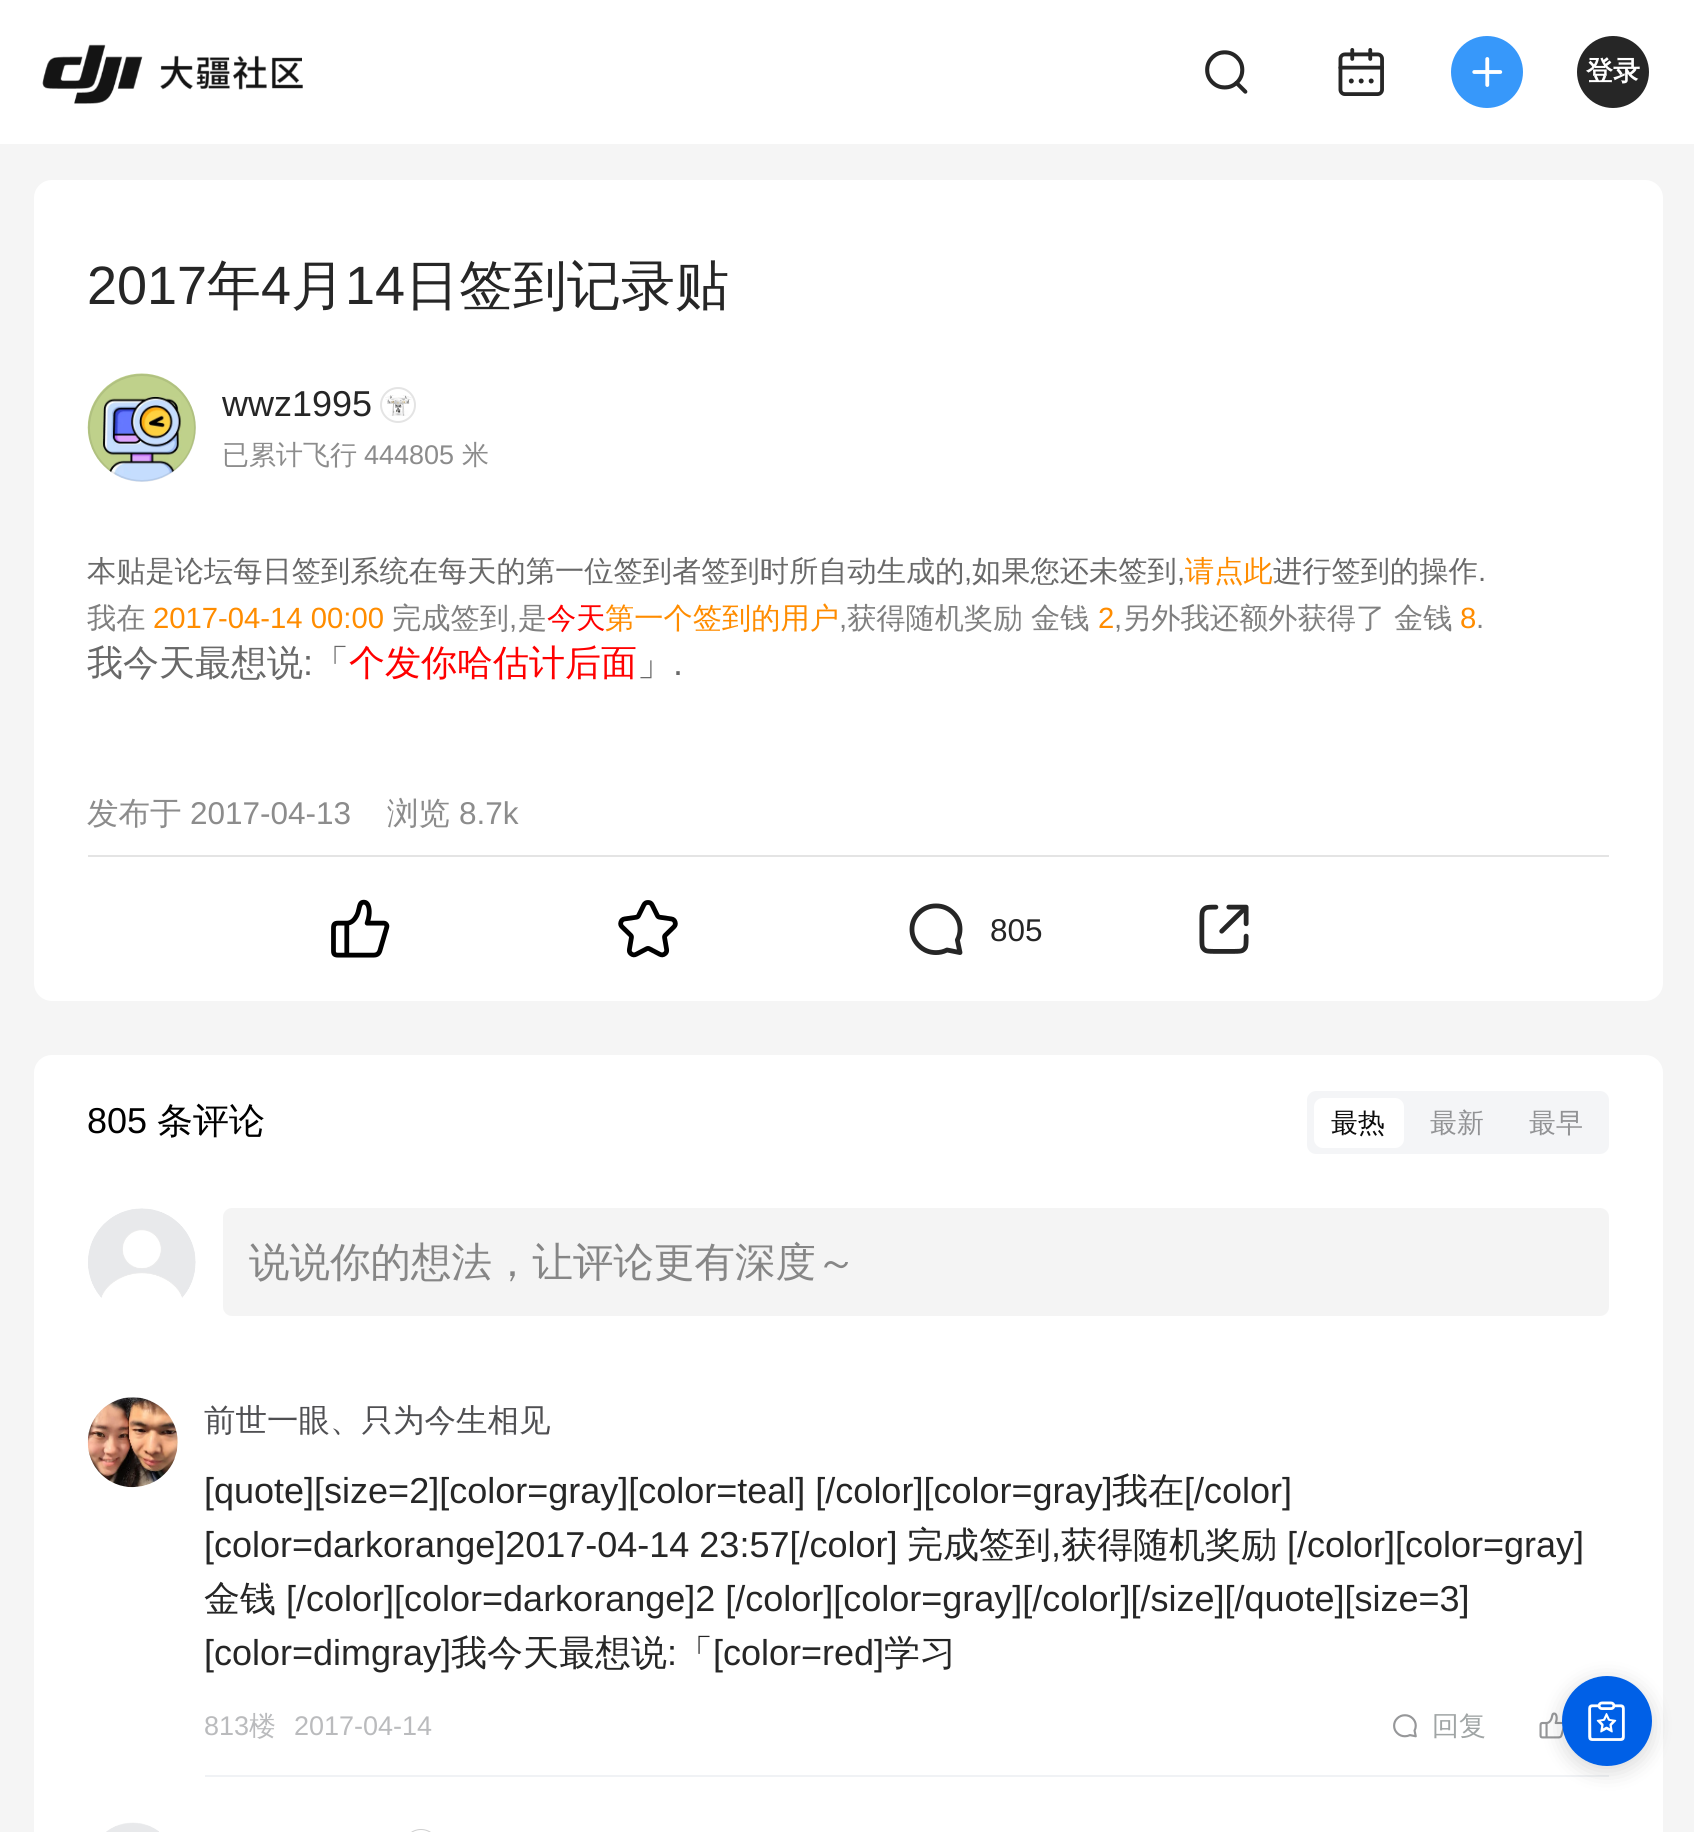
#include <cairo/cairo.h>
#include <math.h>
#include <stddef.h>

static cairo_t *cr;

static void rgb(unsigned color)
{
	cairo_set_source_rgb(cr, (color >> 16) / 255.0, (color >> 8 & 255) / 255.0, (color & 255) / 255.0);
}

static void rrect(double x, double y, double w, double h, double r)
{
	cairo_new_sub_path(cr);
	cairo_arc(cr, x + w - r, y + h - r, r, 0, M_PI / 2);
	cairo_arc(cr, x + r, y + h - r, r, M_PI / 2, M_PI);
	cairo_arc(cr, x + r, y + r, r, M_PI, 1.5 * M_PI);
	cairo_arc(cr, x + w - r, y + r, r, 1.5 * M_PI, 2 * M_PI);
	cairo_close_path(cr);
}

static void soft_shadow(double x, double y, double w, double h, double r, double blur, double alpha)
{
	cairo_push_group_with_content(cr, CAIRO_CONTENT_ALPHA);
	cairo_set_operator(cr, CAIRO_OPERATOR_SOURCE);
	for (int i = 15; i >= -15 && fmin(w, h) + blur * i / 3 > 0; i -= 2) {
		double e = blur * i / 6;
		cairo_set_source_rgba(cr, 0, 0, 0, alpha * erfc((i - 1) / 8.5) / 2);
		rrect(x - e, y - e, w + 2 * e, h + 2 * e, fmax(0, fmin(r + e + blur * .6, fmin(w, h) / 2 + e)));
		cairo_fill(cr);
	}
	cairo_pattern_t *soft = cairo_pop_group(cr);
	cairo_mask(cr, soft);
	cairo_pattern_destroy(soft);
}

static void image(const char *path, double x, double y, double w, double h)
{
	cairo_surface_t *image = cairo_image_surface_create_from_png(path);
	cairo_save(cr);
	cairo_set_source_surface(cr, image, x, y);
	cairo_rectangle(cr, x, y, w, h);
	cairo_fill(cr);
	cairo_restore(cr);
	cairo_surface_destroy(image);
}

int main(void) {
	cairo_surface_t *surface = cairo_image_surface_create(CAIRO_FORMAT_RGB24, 1694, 1832);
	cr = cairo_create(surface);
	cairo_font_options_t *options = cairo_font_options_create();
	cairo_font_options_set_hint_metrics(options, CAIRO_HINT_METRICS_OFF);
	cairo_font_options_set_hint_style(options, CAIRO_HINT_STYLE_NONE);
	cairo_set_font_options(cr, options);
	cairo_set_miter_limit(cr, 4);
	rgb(0xf5f5f5);
	cairo_paint(cr);
	rgb(0xffffff);
	cairo_rectangle(cr, 0, 0, 1694, 144);
	cairo_fill(cr);
	image("img/1.png", 42, 44, 261, 60);
	image("img/2.png", 1205, 50, 43, 44);
	image("img/3.png", 1338, 48, 46, 48);
	rgb(0x3798fa);
	cairo_arc(cr, 1487, 72, 36, 0, 2 * M_PI);
	cairo_fill(cr);
	image("img/4.png", 1472, 57, 31, 30);
	rgb(0x262626);
	cairo_arc(cr, 1613, 72, 36, 0, 2 * M_PI);
	cairo_fill(cr);
	rgb(0xffffff);
	rrect(34, 180, 1629, 821, 18);
	cairo_fill(cr);
	image("img/5.png", 87, 373, 109, 109);
	cairo_arc(cr, 142, 428, 53, 0, 2 * M_PI);
	cairo_set_source_rgba(cr, 0, 0, 0, 0.08);
	cairo_stroke(cr);
	cairo_arc(cr, 398, 405, 17, 0, 2 * M_PI);
	rgb(0xe4e4e4);
	cairo_stroke(cr);
	image("img/6.png", 385, 395, 27, 21);
	cairo_rectangle(cr, 88, 855, 1521, 2);
	cairo_fill(cr);
	image("img/7.png", 331, 899, 59, 59);
	image("img/8.png", 618, 900, 60, 58);
	image("img/9.png", 909, 903, 54, 52);
	image("img/10.png", 1199, 904, 50, 50);
	rgb(0xffffff);
	cairo_new_path(cr);
	cairo_move_to(cr, 52, 1055);
	cairo_line_to(cr, 1645, 1055);
	cairo_curve_to(cr, 1655, 1055, 1663, 1063, 1663, 1073);
	cairo_line_to(cr, 1663, 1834);
	cairo_line_to(cr, 34, 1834);
	cairo_line_to(cr, 34, 1073);
	cairo_curve_to(cr, 34, 1063, 42, 1055, 52, 1055);
	cairo_close_path(cr);
	cairo_fill(cr);
	rgb(0xf4f5f7);
	rrect(1307, 1091, 302, 63, 9);
	cairo_fill(cr);
	rgb(0xffffff);
	rrect(1314, 1098, 90, 50, 9);
	cairo_fill(cr);
	image("img/11.png", 88, 1208, 108, 90);
	rgb(0xf4f4f4);
	rrect(223, 1208, 1386, 108, 9);
	cairo_fill(cr);
	image("img/12.png", 87, 1397, 91, 91);
	image("img/13.png", 1393, 1714, 24, 24);
	image("img/14.png", 1539, 1712, 25, 27);
	rgb(0xf0f2f5);
	cairo_rectangle(cr, 205, 1775, 1404, 2);
	cairo_fill(cr);
	image("img/15.png", 106, 1822, 53, 10);
	rrect(403.5, 1829.5, 35, 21, 17.5);
	rgb(0xcecece);
	cairo_set_line_width(cr, 1);
	cairo_stroke(cr);
	rgb(0x000000);
	soft_shadow(1562, 1681, 90, 90, 45, 11, 0.16);
	rgb(0x0060e7);
	cairo_arc(cr, 1607, 1721, 45, 0, 2 * M_PI);
	cairo_fill(cr);
	image("img/16.png", 1588, 1701, 37, 40);
	cairo_select_font_face(cr, "WenQuanYi Zen Hei", CAIRO_FONT_SLANT_NORMAL, CAIRO_FONT_WEIGHT_BOLD);
	cairo_set_font_size(cr, 27);
	rgb(0xffffff);
	cairo_move_to(cr, 1586, 80);
	cairo_show_text(cr, "登录");
	cairo_select_font_face(cr, "Liberation Sans", CAIRO_FONT_SLANT_NORMAL, CAIRO_FONT_WEIGHT_NORMAL);
	cairo_set_font_size(cr, 54);
	rgb(0x262626);
	cairo_move_to(cr, 87, 304);
	cairo_show_text(cr, "2017");
	cairo_select_font_face(cr, "WenQuanYi Zen Hei Medium", CAIRO_FONT_SLANT_NORMAL, CAIRO_FONT_WEIGHT_NORMAL);
	cairo_move_to(cr, 207, 304);
	cairo_show_text(cr, "年");
	cairo_select_font_face(cr, "Liberation Sans", CAIRO_FONT_SLANT_NORMAL, CAIRO_FONT_WEIGHT_NORMAL);
	cairo_move_to(cr, 261, 304);
	cairo_show_text(cr, "4");
	cairo_select_font_face(cr, "WenQuanYi Zen Hei Medium", CAIRO_FONT_SLANT_NORMAL, CAIRO_FONT_WEIGHT_NORMAL);
	cairo_move_to(cr, 291, 304);
	cairo_show_text(cr, "月");
	cairo_select_font_face(cr, "Liberation Sans", CAIRO_FONT_SLANT_NORMAL, CAIRO_FONT_WEIGHT_NORMAL);
	cairo_move_to(cr, 345, 304);
	cairo_show_text(cr, "14");
	cairo_select_font_face(cr, "WenQuanYi Zen Hei Medium", CAIRO_FONT_SLANT_NORMAL, CAIRO_FONT_WEIGHT_NORMAL);
	cairo_move_to(cr, 405, 304);
	cairo_show_text(cr, "日签到记录贴");
	cairo_select_font_face(cr, "Liberation Sans", CAIRO_FONT_SLANT_NORMAL, CAIRO_FONT_WEIGHT_NORMAL);
	cairo_set_font_size(cr, 36);
	cairo_move_to(cr, 222, 416);
	cairo_show_text(cr, "wwz1995");
	cairo_select_font_face(cr, "WenQuanYi Zen Hei Medium", CAIRO_FONT_SLANT_NORMAL, CAIRO_FONT_WEIGHT_NORMAL);
	cairo_set_font_size(cr, 27);
	rgb(0x8c8c8c);
	cairo_move_to(cr, 222, 464);
	cairo_show_text(cr, "已累计飞行");
	cairo_select_font_face(cr, "Liberation Sans", CAIRO_FONT_SLANT_NORMAL, CAIRO_FONT_WEIGHT_NORMAL);
	cairo_move_to(cr, 364, 464);
	cairo_show_text(cr, "444805");
	cairo_select_font_face(cr, "WenQuanYi Zen Hei Medium", CAIRO_FONT_SLANT_NORMAL, CAIRO_FONT_WEIGHT_NORMAL);
	cairo_move_to(cr, 462, 464);
	cairo_show_text(cr, "米");
	cairo_set_font_size(cr, 29.25);
	rgb(0x696969);
	cairo_move_to(cr, 87, 581);
	cairo_show_text(cr, "本贴是论坛每日签到系统在每天的第一位签到者签到时所自动生成的");
	cairo_select_font_face(cr, "Liberation Sans", CAIRO_FONT_SLANT_NORMAL, CAIRO_FONT_WEIGHT_NORMAL);
	cairo_move_to(cr, 964, 581);
	cairo_show_text(cr, ",");
	cairo_select_font_face(cr, "WenQuanYi Zen Hei Medium", CAIRO_FONT_SLANT_NORMAL, CAIRO_FONT_WEIGHT_NORMAL);
	cairo_move_to(cr, 972, 581);
	cairo_show_text(cr, "如果您还未签到");
	cairo_select_font_face(cr, "Liberation Sans", CAIRO_FONT_SLANT_NORMAL, CAIRO_FONT_WEIGHT_NORMAL);
	cairo_move_to(cr, 1177, 581);
	cairo_show_text(cr, ",");
	cairo_select_font_face(cr, "WenQuanYi Zen Hei Medium", CAIRO_FONT_SLANT_NORMAL, CAIRO_FONT_WEIGHT_NORMAL);
	rgb(0xff8c00);
	cairo_move_to(cr, 1185, 581);
	cairo_show_text(cr, "请点此");
	rgb(0x696969);
	cairo_move_to(cr, 1273, 581);
	cairo_show_text(cr, "进行签到的操作");
	cairo_select_font_face(cr, "Liberation Sans", CAIRO_FONT_SLANT_NORMAL, CAIRO_FONT_WEIGHT_NORMAL);
	cairo_move_to(cr, 1478, 581);
	cairo_show_text(cr, ".");
	cairo_select_font_face(cr, "WenQuanYi Zen Hei Medium", CAIRO_FONT_SLANT_NORMAL, CAIRO_FONT_WEIGHT_NORMAL);
	rgb(0x808080);
	cairo_move_to(cr, 87, 628);
	cairo_show_text(cr, "我在");
	cairo_select_font_face(cr, "Liberation Sans", CAIRO_FONT_SLANT_NORMAL, CAIRO_FONT_WEIGHT_NORMAL);
	rgb(0xff8c00);
	cairo_move_to(cr, 153, 628);
	cairo_show_text(cr, "2017-04-14 00:00");
	cairo_select_font_face(cr, "WenQuanYi Zen Hei Medium", CAIRO_FONT_SLANT_NORMAL, CAIRO_FONT_WEIGHT_NORMAL);
	rgb(0x808080);
	cairo_move_to(cr, 392, 628);
	cairo_show_text(cr, "完成签到");
	cairo_select_font_face(cr, "Liberation Sans", CAIRO_FONT_SLANT_NORMAL, CAIRO_FONT_WEIGHT_NORMAL);
	cairo_move_to(cr, 509, 628);
	cairo_show_text(cr, ",");
	cairo_select_font_face(cr, "WenQuanYi Zen Hei Medium", CAIRO_FONT_SLANT_NORMAL, CAIRO_FONT_WEIGHT_NORMAL);
	cairo_move_to(cr, 518, 628);
	cairo_show_text(cr, "是");
	rgb(0xff0000);
	cairo_move_to(cr, 547, 628);
	cairo_show_text(cr, "今天");
	rgb(0xff8c00);
	cairo_move_to(cr, 605, 628);
	cairo_show_text(cr, "第一个签到的用户");
	cairo_select_font_face(cr, "Liberation Sans", CAIRO_FONT_SLANT_NORMAL, CAIRO_FONT_WEIGHT_NORMAL);
	rgb(0x808080);
	cairo_move_to(cr, 839, 628);
	cairo_show_text(cr, ",");
	cairo_select_font_face(cr, "WenQuanYi Zen Hei Medium", CAIRO_FONT_SLANT_NORMAL, CAIRO_FONT_WEIGHT_NORMAL);
	cairo_move_to(cr, 847, 628);
	cairo_show_text(cr, "获得随机奖励");
	cairo_move_to(cr, 1031, 628);
	cairo_show_text(cr, "金钱");
	cairo_select_font_face(cr, "Liberation Sans", CAIRO_FONT_SLANT_NORMAL, CAIRO_FONT_WEIGHT_NORMAL);
	rgb(0xff8c00);
	cairo_move_to(cr, 1098, 628);
	cairo_show_text(cr, "2");
	rgb(0x808080);
	cairo_move_to(cr, 1114, 628);
	cairo_show_text(cr, ",");
	cairo_select_font_face(cr, "WenQuanYi Zen Hei Medium", CAIRO_FONT_SLANT_NORMAL, CAIRO_FONT_WEIGHT_NORMAL);
	cairo_move_to(cr, 1122, 628);
	cairo_show_text(cr, "另外我还额外获得了");
	cairo_move_to(cr, 1394, 628);
	cairo_show_text(cr, "金钱");
	cairo_select_font_face(cr, "Liberation Sans", CAIRO_FONT_SLANT_NORMAL, CAIRO_FONT_WEIGHT_NORMAL);
	rgb(0xff8c00);
	cairo_move_to(cr, 1460, 628);
	cairo_show_text(cr, "8");
	rgb(0x808080);
	cairo_move_to(cr, 1476, 628);
	cairo_show_text(cr, ".");
	cairo_select_font_face(cr, "WenQuanYi Zen Hei Medium", CAIRO_FONT_SLANT_NORMAL, CAIRO_FONT_WEIGHT_NORMAL);
	cairo_set_font_size(cr, 36);
	rgb(0x696969);
	cairo_move_to(cr, 87, 675);
	cairo_show_text(cr, "我今天最想说");
	cairo_select_font_face(cr, "Liberation Sans", CAIRO_FONT_SLANT_NORMAL, CAIRO_FONT_WEIGHT_NORMAL);
	cairo_move_to(cr, 303, 675);
	cairo_show_text(cr, ":");
	cairo_select_font_face(cr, "WenQuanYi Zen Hei Medium", CAIRO_FONT_SLANT_NORMAL, CAIRO_FONT_WEIGHT_NORMAL);
	cairo_move_to(cr, 313, 675);
	cairo_show_text(cr, "「");
	rgb(0xff0000);
	cairo_move_to(cr, 349, 675);
	cairo_show_text(cr, "个发你哈估计后面");
	rgb(0x696969);
	cairo_move_to(cr, 637, 675);
	cairo_show_text(cr, "」");
	cairo_select_font_face(cr, "Liberation Sans", CAIRO_FONT_SLANT_NORMAL, CAIRO_FONT_WEIGHT_NORMAL);
	cairo_move_to(cr, 673, 675);
	cairo_show_text(cr, ".");
	cairo_select_font_face(cr, "WenQuanYi Zen Hei Medium", CAIRO_FONT_SLANT_NORMAL, CAIRO_FONT_WEIGHT_NORMAL);
	cairo_set_font_size(cr, 31.5);
	rgb(0x8c8c8c);
	cairo_move_to(cr, 87, 824);
	cairo_show_text(cr, "发布于");
	cairo_select_font_face(cr, "Liberation Sans", CAIRO_FONT_SLANT_NORMAL, CAIRO_FONT_WEIGHT_NORMAL);
	cairo_move_to(cr, 190, 824);
	cairo_show_text(cr, "2017-04-13");
	cairo_select_font_face(cr, "WenQuanYi Zen Hei Medium", CAIRO_FONT_SLANT_NORMAL, CAIRO_FONT_WEIGHT_NORMAL);
	cairo_move_to(cr, 387, 824);
	cairo_show_text(cr, "浏览");
	cairo_select_font_face(cr, "Liberation Sans", CAIRO_FONT_SLANT_NORMAL, CAIRO_FONT_WEIGHT_NORMAL);
	cairo_move_to(cr, 459, 824);
	cairo_show_text(cr, "8.7k");
	rgb(0x262626);
	cairo_move_to(cr, 990, 941);
	cairo_show_text(cr, "805");
	cairo_set_font_size(cr, 36);
	rgb(0x000000);
	cairo_move_to(cr, 87, 1133);
	cairo_show_text(cr, "805");
	cairo_select_font_face(cr, "WenQuanYi Zen Hei Medium", CAIRO_FONT_SLANT_NORMAL, CAIRO_FONT_WEIGHT_NORMAL);
	cairo_move_to(cr, 157, 1133);
	cairo_show_text(cr, "条评论");
	cairo_set_font_size(cr, 27);
	rgb(0x0c0c0c);
	cairo_move_to(cr, 1331, 1132);
	cairo_show_text(cr, "最热");
	rgb(0x919294);
	cairo_move_to(cr, 1430, 1132);
	cairo_show_text(cr, "最新");
	cairo_move_to(cr, 1529, 1132);
	cairo_show_text(cr, "最早");
	cairo_set_font_size(cr, 40.5);
	rgb(0x868686);
	cairo_move_to(cr, 249, 1276);
	cairo_show_text(cr, "说说你的想法，让评论更有深度～");
	cairo_set_font_size(cr, 31.5);
	rgb(0x4f4f52);
	cairo_move_to(cr, 204, 1431);
	cairo_show_text(cr, "前世一眼、只为今生相见");
	cairo_select_font_face(cr, "Liberation Sans", CAIRO_FONT_SLANT_NORMAL, CAIRO_FONT_WEIGHT_NORMAL);
	cairo_set_font_size(cr, 36);
	rgb(0x262626);
	cairo_move_to(cr, 204, 1503);
	cairo_show_text(cr, "[quote][size=2][color=gray][color=teal] [/color][color=gray]");
	cairo_select_font_face(cr, "WenQuanYi Zen Hei Medium", CAIRO_FONT_SLANT_NORMAL, CAIRO_FONT_WEIGHT_NORMAL);
	cairo_move_to(cr, 1112, 1503);
	cairo_show_text(cr, "我在");
	cairo_select_font_face(cr, "Liberation Sans", CAIRO_FONT_SLANT_NORMAL, CAIRO_FONT_WEIGHT_NORMAL);
	cairo_move_to(cr, 1184, 1503);
	cairo_show_text(cr, "[/color]");
	cairo_move_to(cr, 204, 1557);
	cairo_show_text(cr, "[color=darkorange]2017-04-14 23:57[/color]");
	cairo_select_font_face(cr, "WenQuanYi Zen Hei Medium", CAIRO_FONT_SLANT_NORMAL, CAIRO_FONT_WEIGHT_NORMAL);
	cairo_move_to(cr, 907, 1557);
	cairo_show_text(cr, "完成签到");
	cairo_select_font_face(cr, "Liberation Sans", CAIRO_FONT_SLANT_NORMAL, CAIRO_FONT_WEIGHT_NORMAL);
	cairo_move_to(cr, 1051, 1557);
	cairo_show_text(cr, ",");
	cairo_select_font_face(cr, "WenQuanYi Zen Hei Medium", CAIRO_FONT_SLANT_NORMAL, CAIRO_FONT_WEIGHT_NORMAL);
	cairo_move_to(cr, 1061, 1557);
	cairo_show_text(cr, "获得随机奖励");
	cairo_select_font_face(cr, "Liberation Sans", CAIRO_FONT_SLANT_NORMAL, CAIRO_FONT_WEIGHT_NORMAL);
	cairo_move_to(cr, 1287, 1557);
	cairo_show_text(cr, "[/color][color=gray]");
	cairo_select_font_face(cr, "WenQuanYi Zen Hei Medium", CAIRO_FONT_SLANT_NORMAL, CAIRO_FONT_WEIGHT_NORMAL);
	cairo_move_to(cr, 204, 1611);
	cairo_show_text(cr, "金钱");
	cairo_select_font_face(cr, "Liberation Sans", CAIRO_FONT_SLANT_NORMAL, CAIRO_FONT_WEIGHT_NORMAL);
	cairo_move_to(cr, 286, 1611);
	cairo_show_text(cr, "[/color][color=darkorange]2 [/color][color=gray][/color][/size][/quote][size=3]");
	cairo_move_to(cr, 204, 1665);
	cairo_show_text(cr, "[color=dimgray]");
	cairo_select_font_face(cr, "WenQuanYi Zen Hei Medium", CAIRO_FONT_SLANT_NORMAL, CAIRO_FONT_WEIGHT_NORMAL);
	cairo_move_to(cr, 451, 1665);
	cairo_show_text(cr, "我今天最想说");
	cairo_select_font_face(cr, "Liberation Sans", CAIRO_FONT_SLANT_NORMAL, CAIRO_FONT_WEIGHT_NORMAL);
	cairo_move_to(cr, 667, 1665);
	cairo_show_text(cr, ":");
	cairo_select_font_face(cr, "WenQuanYi Zen Hei Medium", CAIRO_FONT_SLANT_NORMAL, CAIRO_FONT_WEIGHT_NORMAL);
	cairo_move_to(cr, 677, 1665);
	cairo_show_text(cr, "「");
	cairo_select_font_face(cr, "Liberation Sans", CAIRO_FONT_SLANT_NORMAL, CAIRO_FONT_WEIGHT_NORMAL);
	cairo_move_to(cr, 713, 1665);
	cairo_show_text(cr, "[color=red]");
	cairo_select_font_face(cr, "WenQuanYi Zen Hei Medium", CAIRO_FONT_SLANT_NORMAL, CAIRO_FONT_WEIGHT_NORMAL);
	cairo_move_to(cr, 884, 1665);
	cairo_show_text(cr, "学习");
	cairo_select_font_face(cr, "Liberation Sans", CAIRO_FONT_SLANT_NORMAL, CAIRO_FONT_WEIGHT_NORMAL);
	cairo_set_font_size(cr, 27);
	rgb(0xbabbbd);
	cairo_move_to(cr, 204, 1735);
	cairo_show_text(cr, "813");
	cairo_select_font_face(cr, "WenQuanYi Zen Hei Medium", CAIRO_FONT_SLANT_NORMAL, CAIRO_FONT_WEIGHT_NORMAL);
	cairo_move_to(cr, 249, 1735);
	cairo_show_text(cr, "楼");
	cairo_select_font_face(cr, "Liberation Sans", CAIRO_FONT_SLANT_NORMAL, CAIRO_FONT_WEIGHT_NORMAL);
	cairo_move_to(cr, 294, 1735);
	cairo_show_text(cr, "2017-04-14");
	cairo_select_font_face(cr, "WenQuanYi Zen Hei Medium", CAIRO_FONT_SLANT_NORMAL, CAIRO_FONT_WEIGHT_NORMAL);
	rgb(0xa0a5a5);
	cairo_move_to(cr, 1432, 1735);
	cairo_show_text(cr, "回复");
	cairo_surface_write_to_png(surface, "page.png");
	cairo_font_options_destroy(options);
	cairo_destroy(cr);
	cairo_surface_destroy(surface);
	return 0;
}
